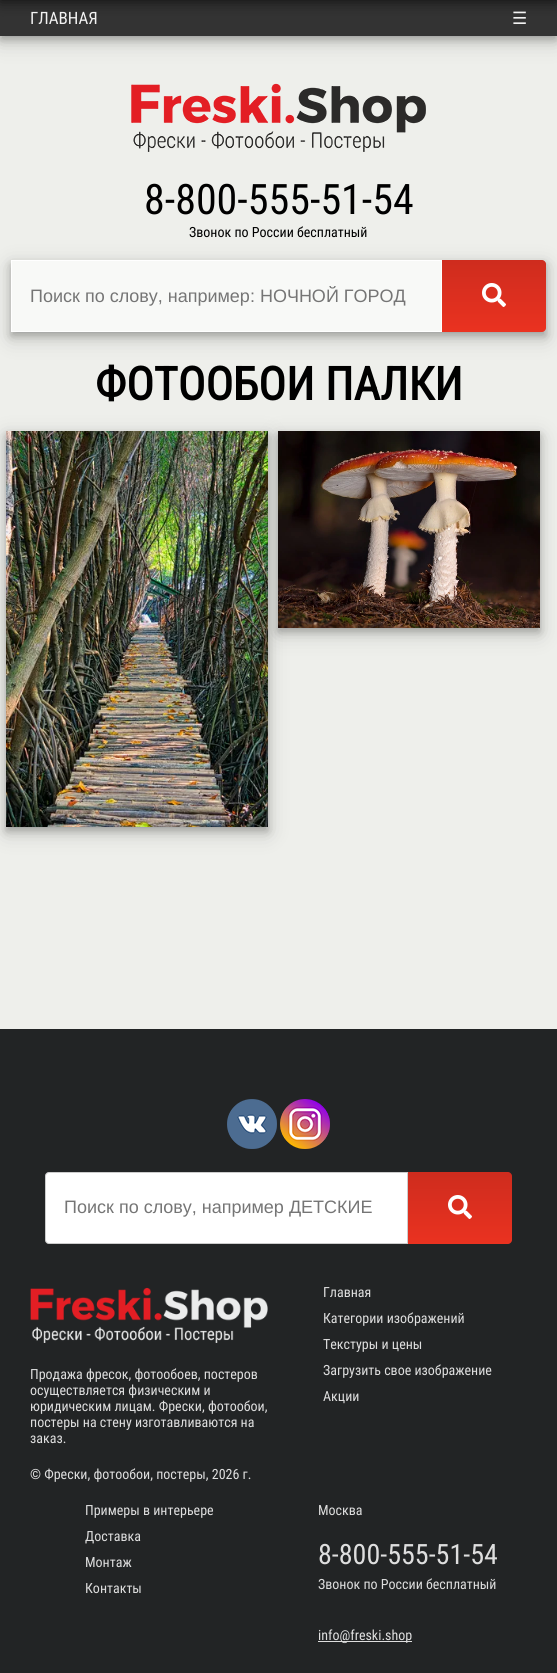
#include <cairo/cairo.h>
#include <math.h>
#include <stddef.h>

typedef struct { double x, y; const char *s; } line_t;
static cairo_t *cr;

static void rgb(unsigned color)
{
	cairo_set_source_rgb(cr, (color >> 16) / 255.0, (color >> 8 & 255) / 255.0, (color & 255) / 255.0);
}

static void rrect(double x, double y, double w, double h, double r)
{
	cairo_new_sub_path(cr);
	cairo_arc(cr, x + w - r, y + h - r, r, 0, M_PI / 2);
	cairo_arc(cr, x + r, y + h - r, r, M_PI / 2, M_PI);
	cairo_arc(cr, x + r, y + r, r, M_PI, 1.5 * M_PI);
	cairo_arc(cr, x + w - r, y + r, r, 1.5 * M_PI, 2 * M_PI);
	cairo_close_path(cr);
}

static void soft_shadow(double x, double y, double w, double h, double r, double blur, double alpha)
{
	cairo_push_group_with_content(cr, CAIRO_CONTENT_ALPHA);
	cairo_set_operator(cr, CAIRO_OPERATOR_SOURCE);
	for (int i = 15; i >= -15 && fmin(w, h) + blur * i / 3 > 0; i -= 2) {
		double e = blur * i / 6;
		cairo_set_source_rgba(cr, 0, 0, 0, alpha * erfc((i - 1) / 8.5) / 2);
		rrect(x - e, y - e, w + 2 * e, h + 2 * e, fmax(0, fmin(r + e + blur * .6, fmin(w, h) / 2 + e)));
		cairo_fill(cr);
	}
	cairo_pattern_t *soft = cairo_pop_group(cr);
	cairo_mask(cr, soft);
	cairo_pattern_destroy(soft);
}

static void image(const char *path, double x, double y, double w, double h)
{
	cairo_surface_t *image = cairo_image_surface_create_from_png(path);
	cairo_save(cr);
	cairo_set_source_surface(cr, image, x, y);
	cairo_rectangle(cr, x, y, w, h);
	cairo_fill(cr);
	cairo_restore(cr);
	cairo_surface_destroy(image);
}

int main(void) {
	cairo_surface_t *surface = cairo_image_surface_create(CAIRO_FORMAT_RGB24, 557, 1673);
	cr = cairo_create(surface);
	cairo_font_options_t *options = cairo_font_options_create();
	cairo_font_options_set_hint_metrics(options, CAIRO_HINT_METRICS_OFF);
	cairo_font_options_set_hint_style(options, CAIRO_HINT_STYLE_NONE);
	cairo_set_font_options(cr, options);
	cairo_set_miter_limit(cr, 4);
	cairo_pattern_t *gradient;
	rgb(0xeeefeb);
	cairo_paint(cr);
	rgb(0x000000);
	soft_shadow(0, 6, 557, 36, 0, 10, 0.19);
	soft_shadow(0, 4, 557, 36, 0, 4, 0.2);
	rgb(0x333333);
	cairo_rectangle(cr, 0, 0, 557, 36);
	cairo_fill(cr);
	rgb(0x000000);
	soft_shadow(0, -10, 557, 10, 0, 7.5, 0.8);
	image("img/1.png", 131, 83, 295, 69);
	soft_shadow(11, 266, 535, 72, 0, 10, 0.19);
	soft_shadow(11, 264, 535, 72, 0, 4, 0.2);
	rgb(0xf8f9f7);
	cairo_rectangle(cr, 11.5, 260.5, 430, 71);
	cairo_fill_preserve(cr);
	rgb(0xffffff);
	cairo_set_line_width(cr, 1);
	cairo_stroke(cr);
	gradient = cairo_pattern_create_linear(494, 260, 494, 332);
	cairo_pattern_add_color_stop_rgba(gradient, 0, 0.808, 0.173, 0.118, 1);
	cairo_pattern_add_color_stop_rgba(gradient, 1, 0.918, 0.196, 0.125, 1);
	cairo_set_source(cr, gradient);
	cairo_pattern_destroy(gradient);
	cairo_new_path(cr);
	cairo_move_to(cr, 442, 260);
	cairo_line_to(cr, 542, 260);
	cairo_curve_to(cr, 544, 260, 546, 262, 546, 264);
	cairo_line_to(cr, 546, 328);
	cairo_curve_to(cr, 546, 330, 544, 332, 542, 332);
	cairo_line_to(cr, 442, 332);
	cairo_close_path(cr);
	cairo_fill(cr);
	image("img/2.png", 482, 283, 24, 24);
	rgb(0x000000);
	soft_shadow(6, 437, 262, 396, 0, 10, 0.19);
	soft_shadow(6, 435, 262, 396, 0, 4, 0.2);
	image("img/3.png", 6, 431, 262, 396);
	soft_shadow(278, 437, 262, 197, 0, 10, 0.19);
	soft_shadow(278, 435, 262, 197, 0, 4, 0.2);
	image("img/4.png", 278, 431, 262, 197);
	rgb(0x222425);
	cairo_rectangle(cr, 0, 1029, 557, 644);
	cairo_fill(cr);
	image("img/5.png", 227, 1099, 50, 50);
	image("img/6.png", 280, 1099, 50, 50);
	rgb(0xffffff);
	cairo_new_path(cr);
	cairo_move_to(cr, 49, 1172.5);
	cairo_line_to(cr, 407.5, 1172.5);
	cairo_line_to(cr, 407.5, 1243.5);
	cairo_line_to(cr, 49, 1243.5);
	cairo_curve_to(cr, 47, 1243.5, 45.5, 1242, 45.5, 1240);
	cairo_line_to(cr, 45.5, 1176);
	cairo_curve_to(cr, 45.5, 1174, 47, 1172.5, 49, 1172.5);
	cairo_close_path(cr);
	cairo_fill_preserve(cr);
	rgb(0xcccccc);
	cairo_stroke(cr);
	gradient = cairo_pattern_create_linear(460, 1172, 460, 1244);
	cairo_pattern_add_color_stop_rgba(gradient, 0, 0.808, 0.173, 0.118, 1);
	cairo_pattern_add_color_stop_rgba(gradient, 1, 0.918, 0.196, 0.125, 1);
	cairo_set_source(cr, gradient);
	cairo_pattern_destroy(gradient);
	cairo_new_path(cr);
	cairo_move_to(cr, 408, 1172);
	cairo_line_to(cr, 508, 1172);
	cairo_curve_to(cr, 510, 1172, 512, 1174, 512, 1176);
	cairo_line_to(cr, 512, 1240);
	cairo_curve_to(cr, 512, 1242, 510, 1244, 508, 1244);
	cairo_line_to(cr, 408, 1244);
	cairo_close_path(cr);
	cairo_fill(cr);
	image("img/2.png", 448, 1195, 24, 24);
	image("img/7.png", 30, 1287, 238, 56);
	rgb(0xdedede);
	cairo_rectangle(cr, 318, 1641, 94, 1);
	cairo_fill(cr);
	cairo_select_font_face(cr, "Roboto Condensed", CAIRO_FONT_SLANT_NORMAL, CAIRO_FONT_WEIGHT_NORMAL);
	cairo_set_font_size(cr, 17);
	rgb(0xf2f2f2);
	cairo_move_to(cr, 30, 24);
	cairo_show_text(cr, "ГЛАВНАЯ");
	cairo_select_font_face(cr, "DejaVu Sans", CAIRO_FONT_SLANT_NORMAL, CAIRO_FONT_WEIGHT_NORMAL);
	cairo_move_to(cr, 512, 24);
	cairo_show_text(cr, "☰");
	cairo_select_font_face(cr, "Roboto Condensed", CAIRO_FONT_SLANT_NORMAL, CAIRO_FONT_WEIGHT_NORMAL);
	cairo_set_font_size(cr, 42);
	rgb(0x000000);
	cairo_move_to(cr, 144, 214);
	cairo_show_text(cr, "8-800-555-51-54");
	cairo_set_font_size(cr, 14);
	cairo_move_to(cr, 189, 237);
	cairo_show_text(cr, "Звонок по России бесплатный");
	cairo_save(cr);
	cairo_rectangle(cr, 30, 286, 385, 21);
	cairo_clip(cr);
	cairo_select_font_face(cr, "Liberation Sans", CAIRO_FONT_SLANT_NORMAL, CAIRO_FONT_WEIGHT_NORMAL);
	cairo_set_font_size(cr, 18);
	rgb(0x757575);
	cairo_move_to(cr, 30, 302);
	cairo_show_text(cr, "Поиск по слову, например: НОЧНОЙ ГОРОД");
	cairo_restore(cr);
	cairo_select_font_face(cr, "Roboto Condensed", CAIRO_FONT_SLANT_NORMAL, CAIRO_FONT_WEIGHT_BOLD);
	cairo_set_font_size(cr, 46);
	cairo_move_to(cr, 95, 400);
	cairo_show_text(cr, "ФОТООБОИ ПАЛКИ");
	cairo_select_font_face(cr, "Liberation Sans", CAIRO_FONT_SLANT_NORMAL, CAIRO_FONT_WEIGHT_NORMAL);
	cairo_set_font_size(cr, 18);
	rgb(0x757575);
	cairo_move_to(cr, 64, 1213);
	cairo_show_text(cr, "Поиск по слову, например ДЕТСКИЕ");
	cairo_select_font_face(cr, "Roboto Condensed", CAIRO_FONT_SLANT_NORMAL, CAIRO_FONT_WEIGHT_NORMAL);
	cairo_set_font_size(cr, 14);
	rgb(0xdedede);
	{
		static const line_t items[] = {
			{323, 1297, "Главная"},
			{323, 1323, "Категории изображений"},
			{323, 1349, "Текстуры и цены"},
			{323, 1375, "Загрузить свое изображение"},
			{323, 1401, "Акции"},
			{30, 1379, "Продажа фресок, фотообоев, постеров"},
			{30, 1395, "осуществляется физическим и"},
			{30, 1411, "юридическим лицам. Фрески, фотообои,"},
			{30, 1427, "постеры на стену изготавливаются на"},
			{30, 1443, "заказ."},
			{30, 1479, "© Фрески, фотообои, постеры, 2026 г."},
			{85, 1515, "Примеры в интерьере"},
			{85, 1541, "Доставка"},
			{85, 1567, "Монтаж"},
			{85, 1593, "Контакты"},
			{318, 1515, "Москва"},
		};
		for (size_t i = 0; i < sizeof items / sizeof *items; i++) {
			cairo_move_to(cr, items[i].x, items[i].y);
			cairo_show_text(cr, items[i].s);
		}
	}
	cairo_set_font_size(cr, 28);
	cairo_move_to(cr, 318, 1564);
	cairo_show_text(cr, "8-800-555-51-54");
	cairo_set_font_size(cr, 14);
	cairo_move_to(cr, 318, 1589);
	cairo_show_text(cr, "Звонок по России бесплатный");
	cairo_move_to(cr, 318, 1640);
	cairo_show_text(cr, "info@freski.shop");
	cairo_surface_write_to_png(surface, "page.png");
	cairo_font_options_destroy(options);
	cairo_destroy(cr);
	cairo_surface_destroy(surface);
	return 0;
}
